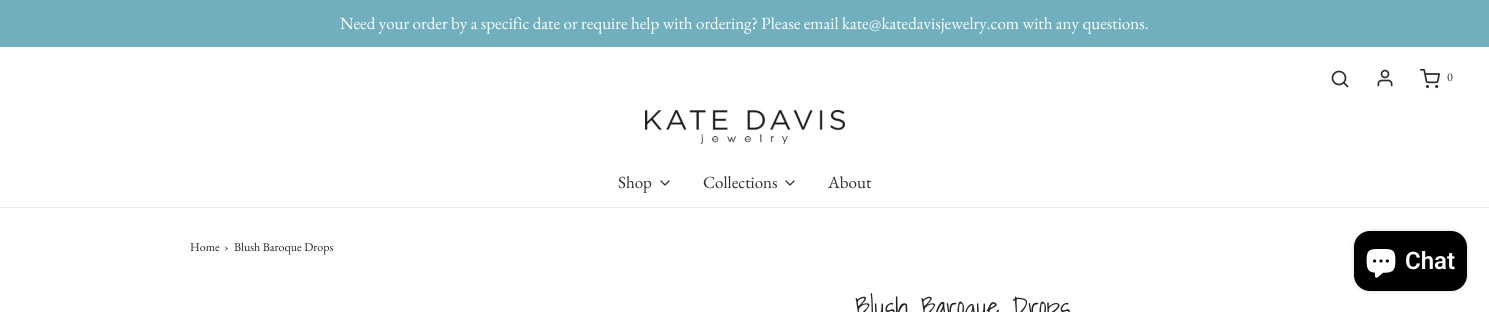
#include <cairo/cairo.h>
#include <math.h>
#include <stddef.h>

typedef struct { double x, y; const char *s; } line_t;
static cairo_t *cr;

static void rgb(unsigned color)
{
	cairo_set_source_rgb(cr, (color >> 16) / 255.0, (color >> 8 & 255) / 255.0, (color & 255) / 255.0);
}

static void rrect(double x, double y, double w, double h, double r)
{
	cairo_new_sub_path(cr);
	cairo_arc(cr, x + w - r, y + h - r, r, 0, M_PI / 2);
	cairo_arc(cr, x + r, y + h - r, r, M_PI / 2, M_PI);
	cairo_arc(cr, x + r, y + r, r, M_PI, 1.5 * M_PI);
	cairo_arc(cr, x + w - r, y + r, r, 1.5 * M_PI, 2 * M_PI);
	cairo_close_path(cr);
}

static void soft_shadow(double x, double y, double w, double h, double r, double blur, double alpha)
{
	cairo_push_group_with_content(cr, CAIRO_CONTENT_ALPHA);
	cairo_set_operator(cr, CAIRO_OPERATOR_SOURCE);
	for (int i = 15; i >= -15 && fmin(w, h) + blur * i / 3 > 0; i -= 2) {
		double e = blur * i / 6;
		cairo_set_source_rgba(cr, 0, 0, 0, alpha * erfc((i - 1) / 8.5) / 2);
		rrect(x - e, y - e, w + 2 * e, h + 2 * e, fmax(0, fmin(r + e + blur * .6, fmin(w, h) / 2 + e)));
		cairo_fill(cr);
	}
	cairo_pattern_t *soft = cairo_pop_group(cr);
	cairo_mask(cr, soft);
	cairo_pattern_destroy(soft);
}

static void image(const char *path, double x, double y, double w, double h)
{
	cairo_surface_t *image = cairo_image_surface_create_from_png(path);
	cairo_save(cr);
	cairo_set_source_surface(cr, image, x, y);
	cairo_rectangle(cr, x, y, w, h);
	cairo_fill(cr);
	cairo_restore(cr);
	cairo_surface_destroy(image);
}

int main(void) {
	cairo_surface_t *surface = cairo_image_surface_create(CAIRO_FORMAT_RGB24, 1489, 312);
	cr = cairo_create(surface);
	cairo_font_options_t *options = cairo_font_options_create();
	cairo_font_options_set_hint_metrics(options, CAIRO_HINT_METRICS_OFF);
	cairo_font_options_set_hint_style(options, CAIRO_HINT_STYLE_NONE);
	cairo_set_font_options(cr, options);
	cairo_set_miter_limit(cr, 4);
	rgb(0xffffff);
	cairo_paint(cr);
	rgb(0x71afbe);
	cairo_rectangle(cr, 0, 0, 1489, 47);
	cairo_fill(cr);
	rgb(0xeaeaea);
	cairo_rectangle(cr, 0, 207, 1489, 1);
	cairo_fill(cr);
	cairo_arc(cr, 1339, 78, 6.5, 0, 2 * M_PI);
	rgb(0x2e2e2e);
	cairo_set_line_width(cr, 1.7);
	cairo_stroke(cr);
	cairo_new_path(cr);
	cairo_move_to(cr, 1347.5, 86.5);
	cairo_line_to(cr, 1344, 83);
	cairo_set_line_cap(cr, CAIRO_LINE_CAP_ROUND);
	cairo_set_line_join(cr, CAIRO_LINE_JOIN_ROUND);
	cairo_stroke(cr);
	image("img/1.png", 1377, 69, 16, 18);
	image("img/2.png", 1420, 69, 20, 20);
	image("img/3.png", 645, 110, 200, 34);
	cairo_new_path(cr);
	cairo_move_to(cr, 661, 181);
	cairo_line_to(cr, 665, 185);
	cairo_line_to(cr, 669, 181);
	cairo_set_line_width(cr, 1.3);
	cairo_stroke(cr);
	cairo_new_path(cr);
	cairo_move_to(cr, 786, 181);
	cairo_line_to(cr, 790, 185);
	cairo_line_to(cr, 794, 181);
	cairo_stroke(cr);
	rgb(0x000000);
	soft_shadow(1354, 231, 113, 60, 16, 2.5, 0.15);
	rgb(0x000000);
	rrect(1354, 231, 113, 60, 16);
	cairo_fill(cr);
	image("img/4.png", 1366, 249, 30, 29);
	cairo_select_font_face(cr, "EB Garamond", CAIRO_FONT_SLANT_NORMAL, CAIRO_FONT_WEIGHT_NORMAL);
	cairo_set_font_size(cr, 17);
	rgb(0xffffff);
	cairo_move_to(cr, 340, 29);
	cairo_show_text(cr, "Need your order by a specific date or require help with ordering? Please email kate@katedavisjewelry.com with any questions.");
	cairo_set_font_size(cr, 12);
	rgb(0x2e2e2e);
	cairo_move_to(cr, 1447, 81);
	cairo_show_text(cr, "0");
	cairo_set_font_size(cr, 17);
	{
		static const line_t items[] = {
			{618, 188, "Shop"},
			{703, 188, "Collections"},
			{828, 188, "About"},
		};
		for (size_t i = 0; i < sizeof items / sizeof *items; i++) {
			cairo_move_to(cr, items[i].x, items[i].y);
			cairo_show_text(cr, items[i].s);
		}
	}
	cairo_set_font_size(cr, 12);
	rgb(0x242424);
	{
		static const line_t items[] = {
			{190, 251, "Home"},
			{224, 251, "›"},
			{234, 251, "Blush Baroque Drops"},
		};
		for (size_t i = 0; i < sizeof items / sizeof *items; i++) {
			cairo_move_to(cr, items[i].x, items[i].y);
			cairo_show_text(cr, items[i].s);
		}
	}
	cairo_select_font_face(cr, "Shadows Into Light", CAIRO_FONT_SLANT_NORMAL, CAIRO_FONT_WEIGHT_NORMAL);
	cairo_set_font_size(cr, 28);
	cairo_move_to(cr, 855, 317);
	cairo_show_text(cr, "Blush Baroque Drops");
	cairo_select_font_face(cr, "Roboto SemiBold", CAIRO_FONT_SLANT_NORMAL, CAIRO_FONT_WEIGHT_NORMAL);
	cairo_set_font_size(cr, 24);
	rgb(0xffffff);
	cairo_move_to(cr, 1405, 269);
	cairo_show_text(cr, "Chat");
	cairo_surface_write_to_png(surface, "page.png");
	cairo_font_options_destroy(options);
	cairo_destroy(cr);
	cairo_surface_destroy(surface);
	return 0;
}
